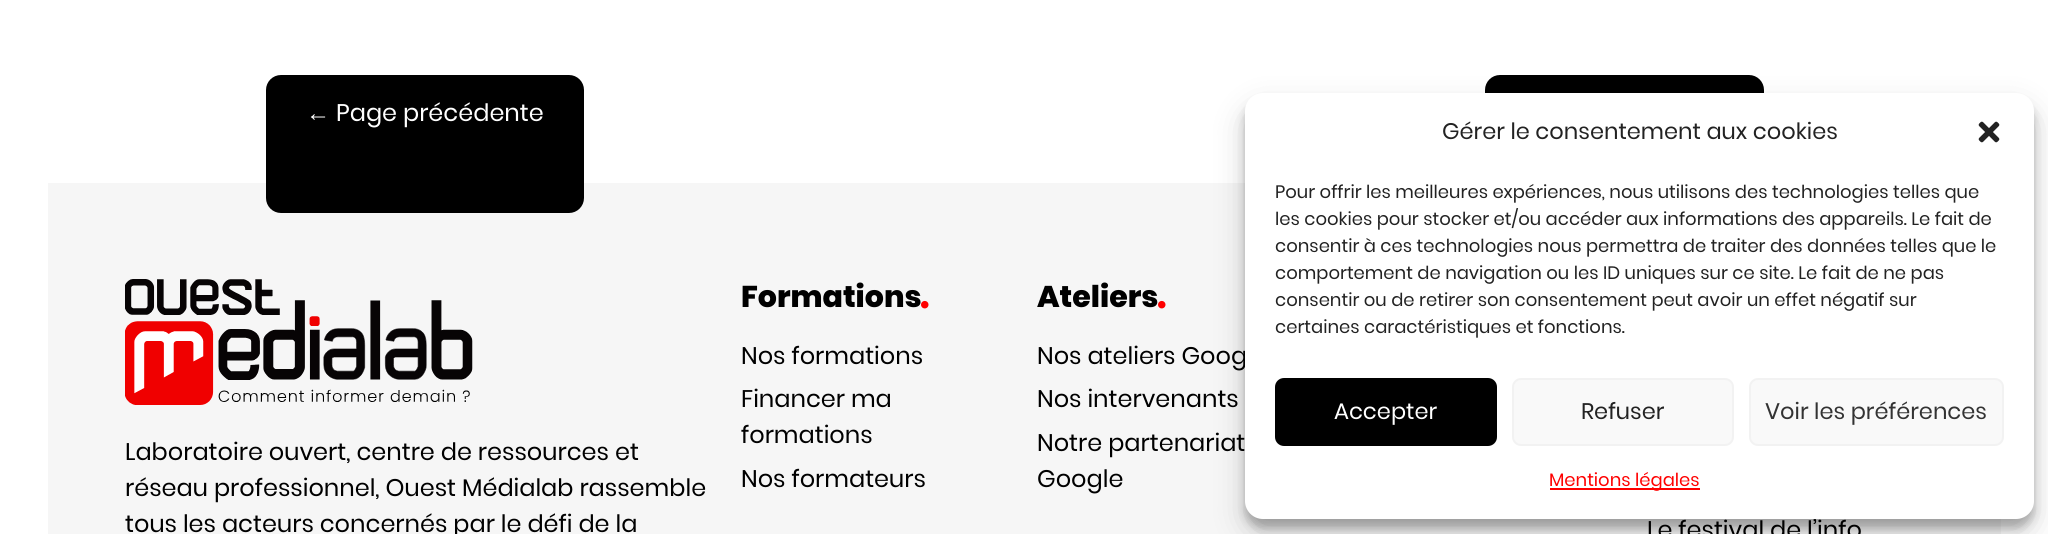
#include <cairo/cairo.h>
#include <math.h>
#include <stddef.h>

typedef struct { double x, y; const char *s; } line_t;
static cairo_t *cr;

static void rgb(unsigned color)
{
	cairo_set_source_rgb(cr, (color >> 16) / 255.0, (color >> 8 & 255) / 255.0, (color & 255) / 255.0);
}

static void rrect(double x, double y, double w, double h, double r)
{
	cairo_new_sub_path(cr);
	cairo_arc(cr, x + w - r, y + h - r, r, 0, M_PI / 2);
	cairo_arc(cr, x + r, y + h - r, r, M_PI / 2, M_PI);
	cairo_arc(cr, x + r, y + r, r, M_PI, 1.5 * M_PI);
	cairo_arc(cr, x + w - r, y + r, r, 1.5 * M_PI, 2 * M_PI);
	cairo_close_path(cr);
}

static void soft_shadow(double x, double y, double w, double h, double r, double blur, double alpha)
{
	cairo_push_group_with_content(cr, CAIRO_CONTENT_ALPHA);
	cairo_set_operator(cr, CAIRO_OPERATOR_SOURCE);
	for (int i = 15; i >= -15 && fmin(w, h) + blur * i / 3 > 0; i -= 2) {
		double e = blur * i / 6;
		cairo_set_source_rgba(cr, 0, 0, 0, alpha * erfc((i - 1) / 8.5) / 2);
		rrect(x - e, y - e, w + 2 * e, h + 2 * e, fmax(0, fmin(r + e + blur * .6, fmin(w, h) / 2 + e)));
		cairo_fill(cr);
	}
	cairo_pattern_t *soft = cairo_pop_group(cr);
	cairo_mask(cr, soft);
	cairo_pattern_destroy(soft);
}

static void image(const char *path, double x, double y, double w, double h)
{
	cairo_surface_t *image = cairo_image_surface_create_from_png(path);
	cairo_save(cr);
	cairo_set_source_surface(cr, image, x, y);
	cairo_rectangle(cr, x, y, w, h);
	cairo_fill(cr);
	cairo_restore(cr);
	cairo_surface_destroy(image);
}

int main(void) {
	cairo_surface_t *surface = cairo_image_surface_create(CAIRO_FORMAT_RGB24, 2048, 534);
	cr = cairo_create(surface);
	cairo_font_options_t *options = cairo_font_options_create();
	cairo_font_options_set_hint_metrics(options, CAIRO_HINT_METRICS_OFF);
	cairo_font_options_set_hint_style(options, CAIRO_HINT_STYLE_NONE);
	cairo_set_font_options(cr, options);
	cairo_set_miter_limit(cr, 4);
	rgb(0xffffff);
	cairo_paint(cr);
	rgb(0xf6f6f6);
	cairo_rectangle(cr, 48, 183, 1953, 351);
	cairo_fill(cr);
	rgb(0x000000);
	rrect(267, 76, 316, 136, 14);
	cairo_fill_preserve(cr);
	cairo_stroke(cr);
	rrect(1486, 76, 277, 136, 14);
	cairo_fill_preserve(cr);
	cairo_stroke(cr);
	image("img/1.png", 125, 279, 348, 126);
	image("img/2.png", 921, 300, 8, 9);
	image("img/2.png", 1158, 300, 8, 9);
	rgb(0x000000);
	soft_shadow(1245, 102, 789, 426, 18, 4.5, 0.23);
	soft_shadow(1245, 108, 789, 426, 18, 15, 0.19);
	cairo_select_font_face(cr, "Liberation Serif", CAIRO_FONT_SLANT_NORMAL, CAIRO_FONT_WEIGHT_NORMAL);
	cairo_set_font_size(cr, 24);
	rgb(0xffffff);
	cairo_move_to(cr, 306, 121);
	cairo_show_text(cr, "←");
	cairo_select_font_face(cr, "Poppins", CAIRO_FONT_SLANT_NORMAL, CAIRO_FONT_WEIGHT_NORMAL);
	cairo_move_to(cr, 336, 121);
	cairo_show_text(cr, "Page précédente");
	rgb(0x000000);
	{
		static const line_t items[] = {
			{125, 460, "Laboratoire ouvert, centre de ressources et"},
			{125, 496, "réseau professionnel, Ouest Médialab rassemble"},
			{125, 532, "tous les acteurs concernés par le défi de la"},
		};
		for (size_t i = 0; i < sizeof items / sizeof *items; i++) {
			cairo_move_to(cr, items[i].x, items[i].y);
			cairo_show_text(cr, items[i].s);
		}
	}
	cairo_select_font_face(cr, "Poppins ExtraBold", CAIRO_FONT_SLANT_NORMAL, CAIRO_FONT_WEIGHT_NORMAL);
	cairo_set_font_size(cr, 30);
	cairo_move_to(cr, 741, 307);
	cairo_show_text(cr, "Formations");
	cairo_select_font_face(cr, "Poppins", CAIRO_FONT_SLANT_NORMAL, CAIRO_FONT_WEIGHT_NORMAL);
	cairo_set_font_size(cr, 24);
	{
		static const line_t items[] = {
			{741, 364, "Nos formations"},
			{741, 407, "Financer ma"},
			{741, 443, "formations"},
			{741, 487, "Nos formateurs"},
		};
		for (size_t i = 0; i < sizeof items / sizeof *items; i++) {
			cairo_move_to(cr, items[i].x, items[i].y);
			cairo_show_text(cr, items[i].s);
		}
	}
	cairo_select_font_face(cr, "Poppins ExtraBold", CAIRO_FONT_SLANT_NORMAL, CAIRO_FONT_WEIGHT_NORMAL);
	cairo_set_font_size(cr, 30);
	cairo_move_to(cr, 1037, 307);
	cairo_show_text(cr, "Ateliers");
	cairo_select_font_face(cr, "Poppins", CAIRO_FONT_SLANT_NORMAL, CAIRO_FONT_WEIGHT_NORMAL);
	cairo_set_font_size(cr, 24);
	{
		static const line_t items[] = {
			{1037, 364, "Nos ateliers Goog"},
			{1037, 407, "Nos intervenants"},
			{1037, 451, "Notre partenariat"},
			{1037, 487, "Google"},
			{1647, 538, "Le festival de l’info"},
		};
		for (size_t i = 0; i < sizeof items / sizeof *items; i++) {
			cairo_move_to(cr, items[i].x, items[i].y);
			cairo_show_text(cr, items[i].s);
		}
	}
	rgb(0xffffff);
	rrect(1245, 93, 789, 426, 18);
	cairo_fill(cr);
	cairo_set_font_size(cr, 22.5);
	rgb(0x222222);
	cairo_move_to(cr, 1442, 139);
	cairo_show_text(cr, "Gérer le consentement aux cookies");
	image("img/3.png", 1978, 121, 22, 22);
	cairo_set_font_size(cr, 18);
	{
		static const line_t items[] = {
			{1275, 198, "Pour offrir les meilleures expériences, nous utilisons des technologies telles que"},
			{1275, 225, "les cookies pour stocker et/ou accéder aux informations des appareils. Le fait de"},
			{1275, 252, "consentir à ces technologies nous permettra de traiter des données telles que le"},
			{1275, 279, "comportement de navigation ou les ID uniques sur ce site. Le fait de ne pas"},
			{1275, 306, "consentir ou de retirer son consentement peut avoir un effet négatif sur"},
			{1275, 333, "certaines caractéristiques et fonctions."},
		};
		for (size_t i = 0; i < sizeof items / sizeof *items; i++) {
			cairo_move_to(cr, items[i].x, items[i].y);
			cairo_show_text(cr, items[i].s);
		}
	}
	rgb(0x000000);
	rrect(1276, 379, 220, 66, 8);
	cairo_fill_preserve(cr);
	cairo_stroke(cr);
	cairo_set_font_size(cr, 22.5);
	rgb(0xffffff);
	cairo_move_to(cr, 1334, 419);
	cairo_show_text(cr, "Accepter");
	rgb(0xf9f9f9);
	rrect(1513, 379, 220, 66, 8);
	cairo_fill_preserve(cr);
	rgb(0xf2f2f2);
	cairo_stroke(cr);
	rgb(0x222222);
	cairo_move_to(cr, 1581, 419);
	cairo_show_text(cr, "Refuser");
	rgb(0xf9f9f9);
	rrect(1750, 379, 253, 66, 8);
	cairo_fill_preserve(cr);
	rgb(0xf2f2f2);
	cairo_stroke(cr);
	rgb(0x333333);
	cairo_move_to(cr, 1765, 419);
	cairo_show_text(cr, "Voir les préférences");
	rgb(0xff0000);
	cairo_rectangle(cr, 1550, 488, 150, 2);
	cairo_fill(cr);
	cairo_set_font_size(cr, 18);
	cairo_move_to(cr, 1549, 486);
	cairo_show_text(cr, "Mentions légales");
	cairo_surface_write_to_png(surface, "page.png");
	cairo_font_options_destroy(options);
	cairo_destroy(cr);
	cairo_surface_destroy(surface);
	return 0;
}
